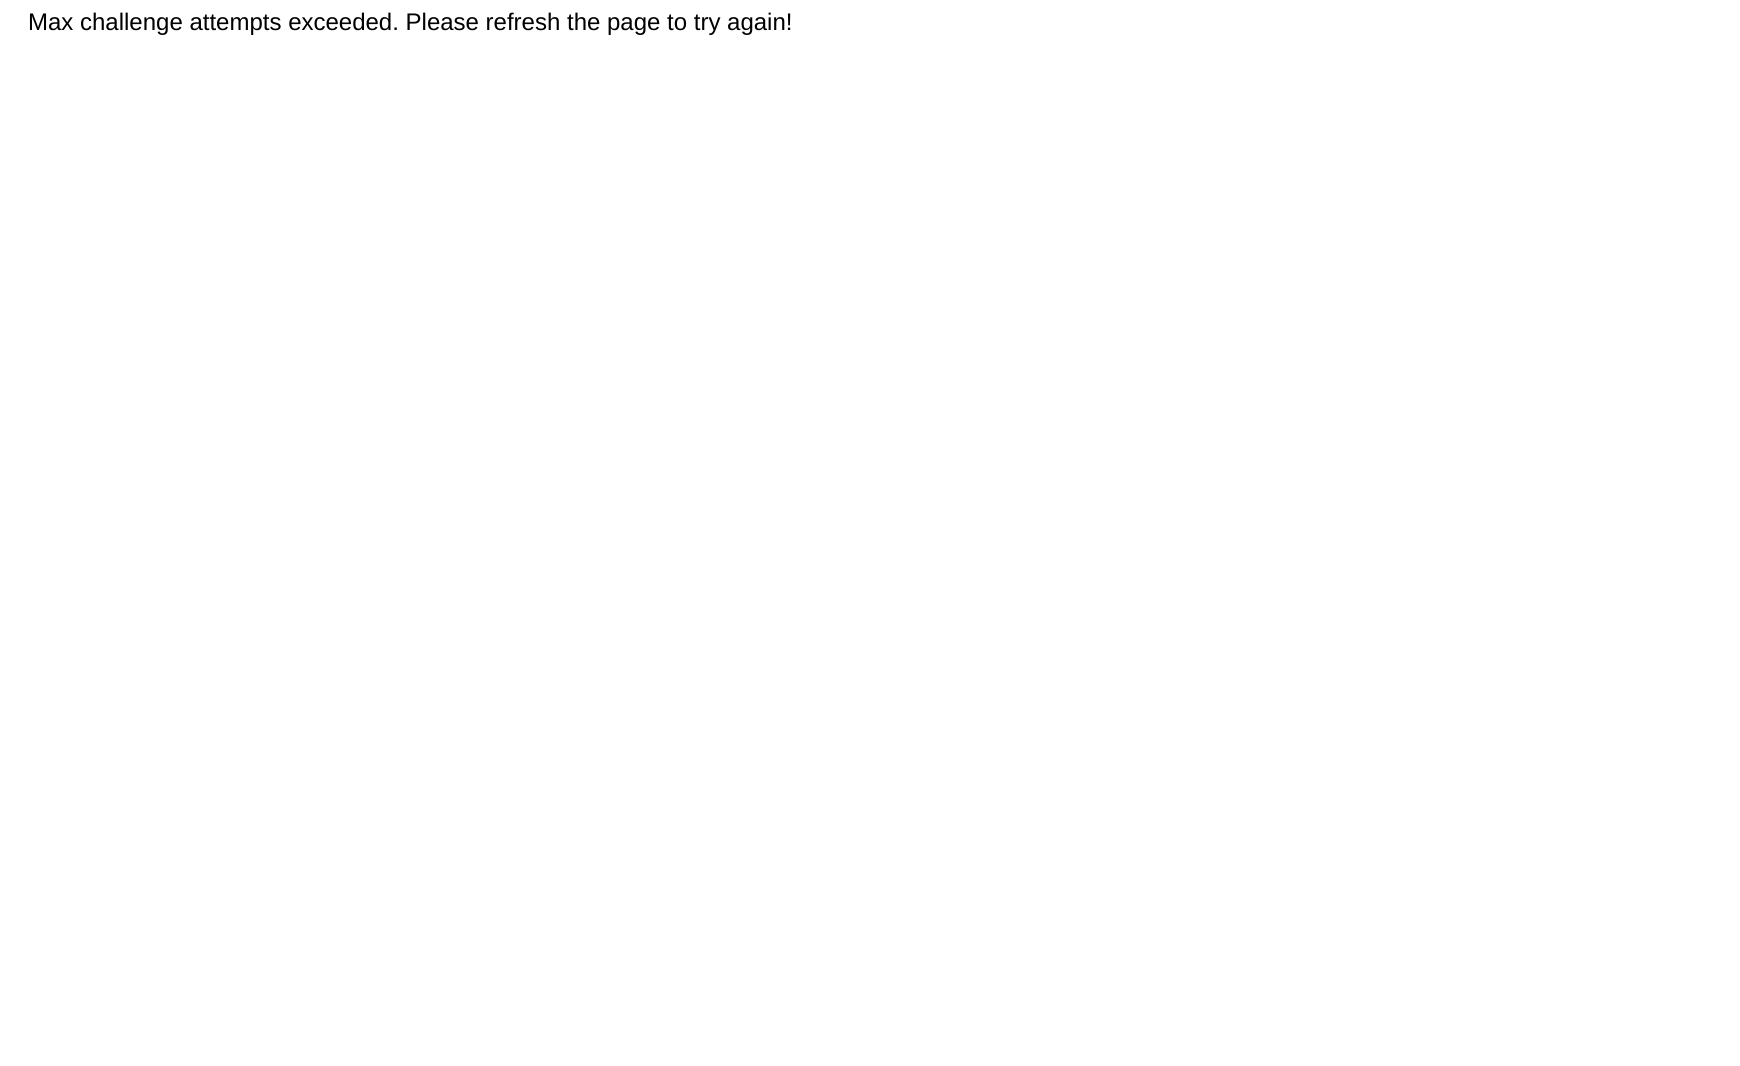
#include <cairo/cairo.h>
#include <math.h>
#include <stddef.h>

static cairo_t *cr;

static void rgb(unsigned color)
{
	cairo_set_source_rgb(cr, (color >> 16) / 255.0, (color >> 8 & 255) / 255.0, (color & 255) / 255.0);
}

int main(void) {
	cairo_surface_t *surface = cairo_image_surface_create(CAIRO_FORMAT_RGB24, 1740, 1066);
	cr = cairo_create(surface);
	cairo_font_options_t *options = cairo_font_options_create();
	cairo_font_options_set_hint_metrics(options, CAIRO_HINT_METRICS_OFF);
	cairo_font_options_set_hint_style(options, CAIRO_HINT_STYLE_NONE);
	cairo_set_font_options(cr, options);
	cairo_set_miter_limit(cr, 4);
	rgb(0xffffff);
	cairo_paint(cr);
	cairo_select_font_face(cr, "Liberation Sans", CAIRO_FONT_SLANT_NORMAL, CAIRO_FONT_WEIGHT_NORMAL);
	cairo_set_font_size(cr, 24);
	rgb(0x000000);
	cairo_move_to(cr, 28, 30);
	cairo_show_text(cr, "Max challenge attempts exceeded. Please refresh the page to try again!");
	cairo_surface_write_to_png(surface, "page.png");
	cairo_font_options_destroy(options);
	cairo_destroy(cr);
	cairo_surface_destroy(surface);
	return 0;
}
